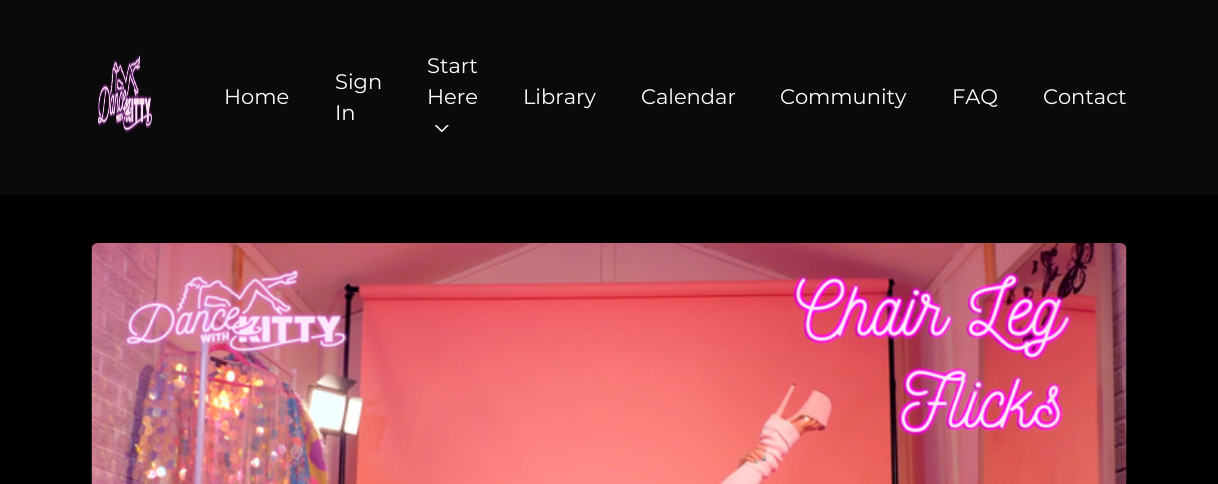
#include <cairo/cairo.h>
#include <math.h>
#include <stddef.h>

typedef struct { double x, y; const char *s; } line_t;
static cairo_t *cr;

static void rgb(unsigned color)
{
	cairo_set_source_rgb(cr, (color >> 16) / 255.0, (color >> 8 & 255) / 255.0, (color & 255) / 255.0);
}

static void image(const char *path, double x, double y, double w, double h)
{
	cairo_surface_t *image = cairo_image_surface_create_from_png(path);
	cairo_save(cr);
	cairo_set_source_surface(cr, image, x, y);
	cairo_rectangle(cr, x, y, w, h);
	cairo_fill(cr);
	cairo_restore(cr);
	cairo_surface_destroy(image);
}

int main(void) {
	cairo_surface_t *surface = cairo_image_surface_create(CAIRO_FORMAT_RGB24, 1218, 484);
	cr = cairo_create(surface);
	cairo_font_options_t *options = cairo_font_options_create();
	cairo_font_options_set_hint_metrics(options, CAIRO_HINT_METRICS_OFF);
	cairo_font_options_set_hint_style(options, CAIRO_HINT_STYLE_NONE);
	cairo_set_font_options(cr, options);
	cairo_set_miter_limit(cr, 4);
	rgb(0x000000);
	cairo_paint(cr);
	rgb(0x0b0a0a);
	cairo_rectangle(cr, 0, 0, 1218, 195);
	cairo_fill(cr);
	image("img/1.png", 97, 54, 56, 79);
	image("img/2.png", 435, 125, 14, 7);
	image("img/3.png", 91, 243, 1036, 241);
	cairo_select_font_face(cr, "Montserrat", CAIRO_FONT_SLANT_NORMAL, CAIRO_FONT_WEIGHT_NORMAL);
	cairo_set_font_size(cr, 21);
	rgb(0xffffff);
	{
		static const line_t items[] = {
			{224, 104, "Home"},
			{335, 89, "Sign"},
			{335, 120, "In"},
			{427, 73, "Start"},
			{427, 104, "Here"},
			{523, 104, "Library"},
			{641, 104, "Calendar"},
			{780, 104, "Community"},
			{952, 104, "FAQ"},
			{1043, 104, "Contact"},
		};
		for (size_t i = 0; i < sizeof items / sizeof *items; i++) {
			cairo_move_to(cr, items[i].x, items[i].y);
			cairo_show_text(cr, items[i].s);
		}
	}
	cairo_surface_write_to_png(surface, "page.png");
	cairo_font_options_destroy(options);
	cairo_destroy(cr);
	cairo_surface_destroy(surface);
	return 0;
}
